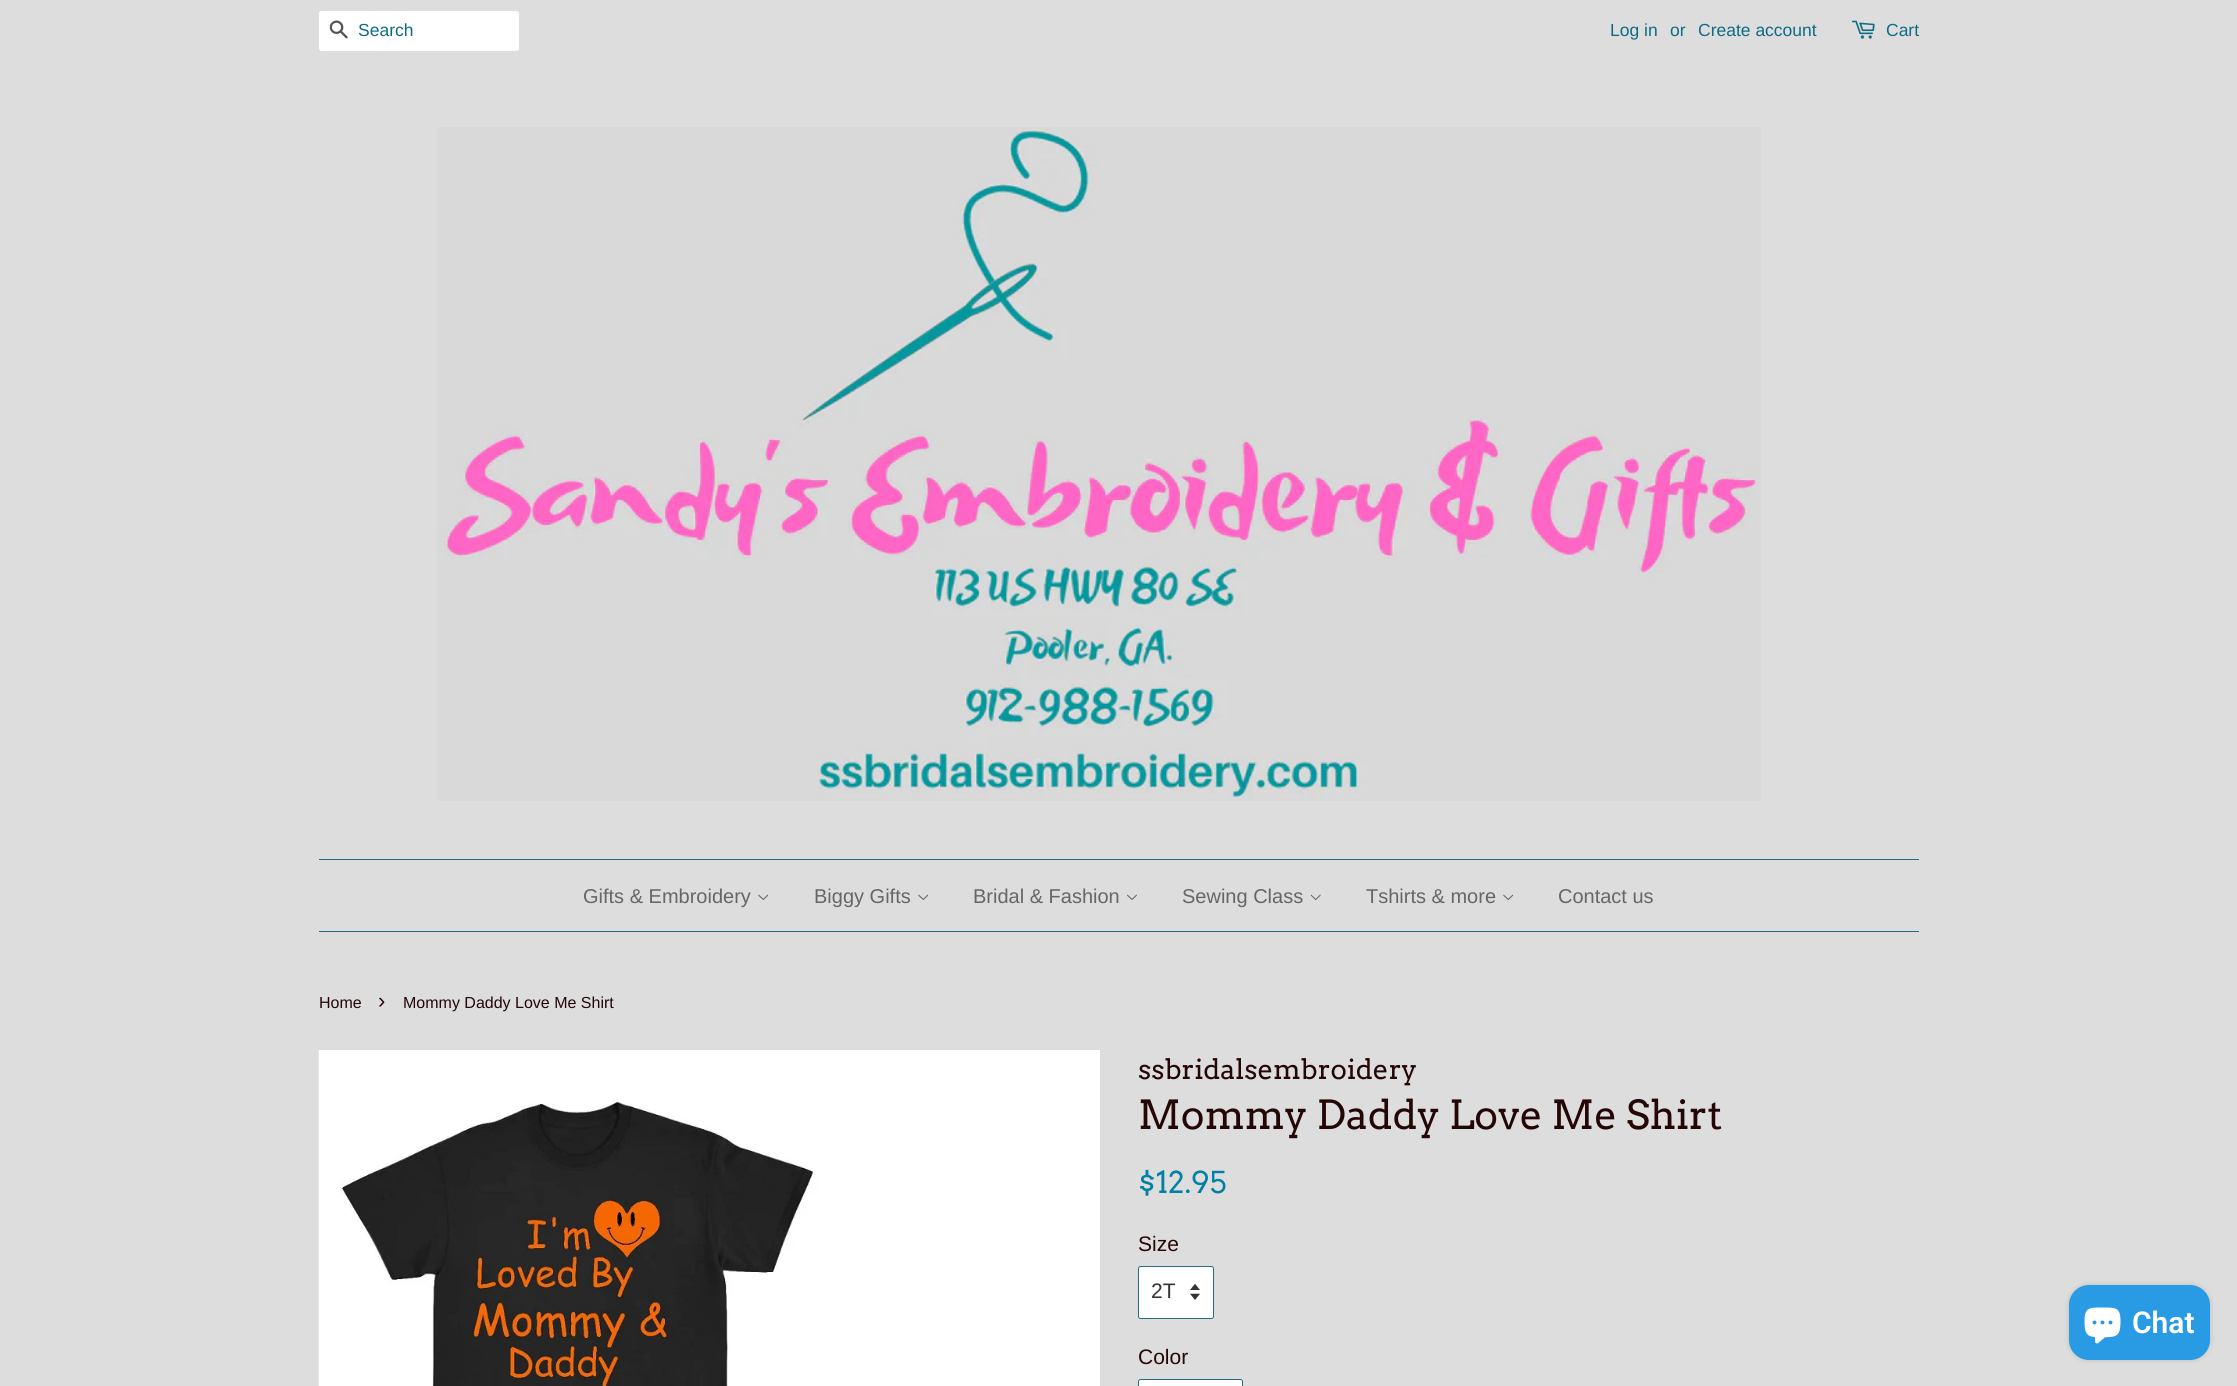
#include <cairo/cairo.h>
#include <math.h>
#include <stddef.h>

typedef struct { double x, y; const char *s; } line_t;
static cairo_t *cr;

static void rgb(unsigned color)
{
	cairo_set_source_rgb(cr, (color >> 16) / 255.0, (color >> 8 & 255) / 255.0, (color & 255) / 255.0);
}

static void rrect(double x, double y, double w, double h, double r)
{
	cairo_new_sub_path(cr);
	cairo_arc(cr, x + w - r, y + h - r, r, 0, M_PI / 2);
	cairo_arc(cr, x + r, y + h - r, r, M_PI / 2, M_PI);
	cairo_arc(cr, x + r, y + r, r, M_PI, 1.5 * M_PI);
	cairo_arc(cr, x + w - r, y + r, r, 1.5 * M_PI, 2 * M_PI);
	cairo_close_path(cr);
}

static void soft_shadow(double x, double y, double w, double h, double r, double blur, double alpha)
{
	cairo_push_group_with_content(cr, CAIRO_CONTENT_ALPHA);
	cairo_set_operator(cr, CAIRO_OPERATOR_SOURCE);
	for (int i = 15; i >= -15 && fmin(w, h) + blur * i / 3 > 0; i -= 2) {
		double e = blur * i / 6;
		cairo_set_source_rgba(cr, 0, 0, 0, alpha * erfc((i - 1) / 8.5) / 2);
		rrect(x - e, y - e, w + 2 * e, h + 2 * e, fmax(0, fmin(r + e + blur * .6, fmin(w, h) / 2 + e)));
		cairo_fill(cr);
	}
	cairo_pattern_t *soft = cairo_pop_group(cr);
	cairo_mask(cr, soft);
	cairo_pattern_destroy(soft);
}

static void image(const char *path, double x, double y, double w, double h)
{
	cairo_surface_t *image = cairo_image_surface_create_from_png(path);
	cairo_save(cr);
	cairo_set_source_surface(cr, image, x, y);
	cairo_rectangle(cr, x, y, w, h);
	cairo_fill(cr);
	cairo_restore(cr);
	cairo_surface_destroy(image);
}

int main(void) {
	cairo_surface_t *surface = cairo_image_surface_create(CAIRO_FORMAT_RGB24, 2237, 1386);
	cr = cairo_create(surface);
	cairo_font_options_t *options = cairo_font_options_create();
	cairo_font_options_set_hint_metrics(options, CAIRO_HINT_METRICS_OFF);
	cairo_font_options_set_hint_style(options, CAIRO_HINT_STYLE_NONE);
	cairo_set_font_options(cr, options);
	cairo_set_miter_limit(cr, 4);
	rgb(0xdddddd);
	cairo_paint(cr);
	rgb(0xffffff);
	rrect(319, 11, 200, 40, 2.5);
	cairo_fill(cr);
	image("img/1.png", 329, 20, 19, 19);
	image("img/2.png", 1851, 20, 24, 19);
	image("img/3.png", 437, 127, 1324, 674);
	rgb(0x246c80);
	cairo_rectangle(cr, 319, 859, 1600, 1);
	cairo_fill(cr);
	cairo_rectangle(cr, 319, 931, 1600, 1);
	cairo_fill(cr);
	image("img/4.png", 758, 894, 11, 7);
	image("img/4.png", 918, 894, 11, 7);
	image("img/5.png", 1127, 894, 10, 6);
	image("img/6.png", 1310, 894, 11, 7);
	image("img/4.png", 1503, 894, 11, 7);
	image("img/7.png", 318, 1050, 782, 336);
	rgb(0xffffff);
	rrect(1138, 1266, 76, 53, 2.5);
	cairo_fill(cr);
	image("img/8.png", 1190, 1284, 10, 16);
	rrect(1138.5, 1266.5, 75, 52, 2);
	rgb(0x246c80);
	cairo_set_line_width(cr, 1);
	cairo_stroke(cr);
	rgb(0xffffff);
	rrect(1138.5, 1379.5, 104, 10, 2);
	cairo_fill_preserve(cr);
	rgb(0x246c80);
	cairo_stroke(cr);
	rgb(0x000000);
	soft_shadow(2069, 1285, 141, 75, 20, 3, 0.15);
	rgb(0x289be4);
	rrect(2069, 1285, 141, 75, 20);
	cairo_fill(cr);
	image("img/9.png", 2084, 1307, 37, 37);
	cairo_select_font_face(cr, "Liberation Sans", CAIRO_FONT_SLANT_NORMAL, CAIRO_FONT_WEIGHT_NORMAL);
	cairo_set_font_size(cr, 17.5);
	rgb(0x0e6b86);
	{
		static const line_t items[] = {
			{358, 36, "Search"},
			{1610, 36, "Log in"},
			{1670, 36, "or"},
			{1698, 36, "Create account"},
			{1886, 36, "Cart"},
		};
		for (size_t i = 0; i < sizeof items / sizeof *items; i++) {
			cairo_move_to(cr, items[i].x, items[i].y);
			cairo_show_text(cr, items[i].s);
		}
	}
	cairo_set_font_size(cr, 20);
	rgb(0x666666);
	{
		static const line_t items[] = {
			{583, 903, "Gifts & Embroidery"},
			{814, 903, "Biggy Gifts"},
			{973, 903, "Bridal & Fashion"},
			{1182, 903, "Sewing Class"},
			{1366, 903, "Tshirts & more"},
			{1558, 903, "Contact us"},
		};
		for (size_t i = 0; i < sizeof items / sizeof *items; i++) {
			cairo_move_to(cr, items[i].x, items[i].y);
			cairo_show_text(cr, items[i].s);
		}
	}
	cairo_set_font_size(cr, 16);
	rgb(0x250606);
	cairo_move_to(cr, 319, 1008);
	cairo_show_text(cr, "Home");
	cairo_set_font_size(cr, 22);
	cairo_move_to(cr, 378, 1008);
	cairo_show_text(cr, "›");
	cairo_set_font_size(cr, 16);
	cairo_move_to(cr, 403, 1008);
	cairo_show_text(cr, "Mommy Daddy Love Me Shirt");
	cairo_select_font_face(cr, "Arvo", CAIRO_FONT_SLANT_NORMAL, CAIRO_FONT_WEIGHT_NORMAL);
	cairo_set_font_size(cr, 27.5);
	cairo_move_to(cr, 1138, 1079);
	cairo_show_text(cr, "ssbridalsembroidery");
	cairo_set_font_size(cr, 40);
	cairo_move_to(cr, 1138, 1129);
	cairo_show_text(cr, "Mommy Daddy Love Me Shirt");
	cairo_set_font_size(cr, 30);
	rgb(0x0081a3);
	cairo_move_to(cr, 1138, 1193);
	cairo_show_text(cr, "$12.95");
	cairo_select_font_face(cr, "Liberation Sans", CAIRO_FONT_SLANT_NORMAL, CAIRO_FONT_WEIGHT_NORMAL);
	cairo_set_font_size(cr, 21);
	rgb(0x250606);
	cairo_move_to(cr, 1138, 1251);
	cairo_show_text(cr, "Size");
	rgb(0x333333);
	cairo_move_to(cr, 1151, 1298);
	cairo_show_text(cr, "2T");
	rgb(0x250606);
	cairo_move_to(cr, 1138, 1364);
	cairo_show_text(cr, "Color");
	cairo_select_font_face(cr, "Roboto SemiBold", CAIRO_FONT_SLANT_NORMAL, CAIRO_FONT_WEIGHT_NORMAL);
	cairo_set_font_size(cr, 30);
	rgb(0xffffff);
	cairo_move_to(cr, 2132, 1333);
	cairo_show_text(cr, "Chat");
	cairo_surface_write_to_png(surface, "page.png");
	cairo_font_options_destroy(options);
	cairo_destroy(cr);
	cairo_surface_destroy(surface);
	return 0;
}
